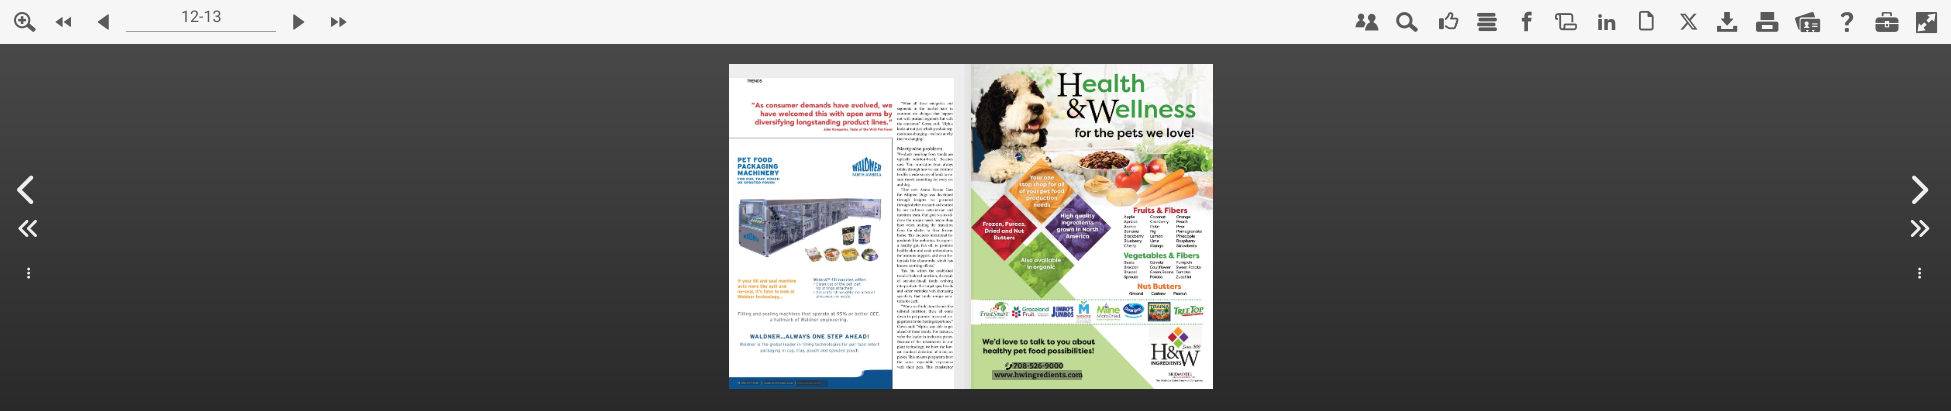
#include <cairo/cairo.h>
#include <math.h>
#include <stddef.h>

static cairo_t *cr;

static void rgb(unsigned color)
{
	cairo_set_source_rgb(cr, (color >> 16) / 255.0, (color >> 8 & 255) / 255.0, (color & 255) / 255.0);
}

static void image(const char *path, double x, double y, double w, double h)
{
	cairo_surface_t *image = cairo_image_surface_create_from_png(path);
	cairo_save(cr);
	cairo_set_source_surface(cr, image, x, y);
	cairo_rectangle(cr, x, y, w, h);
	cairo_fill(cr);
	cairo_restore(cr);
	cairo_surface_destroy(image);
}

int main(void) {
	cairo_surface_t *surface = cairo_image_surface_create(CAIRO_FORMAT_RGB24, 1951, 411);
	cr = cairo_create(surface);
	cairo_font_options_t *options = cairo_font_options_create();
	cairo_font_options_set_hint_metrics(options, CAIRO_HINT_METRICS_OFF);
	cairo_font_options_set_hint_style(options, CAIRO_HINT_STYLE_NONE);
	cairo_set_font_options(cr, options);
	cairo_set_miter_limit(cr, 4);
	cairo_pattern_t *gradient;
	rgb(0xffffff);
	cairo_paint(cr);
	gradient = cairo_pattern_create_linear(976, 0, 976, 411);
	cairo_pattern_add_color_stop_rgba(gradient, 0, 0.298, 0.298, 0.298, 1);
	cairo_pattern_add_color_stop_rgba(gradient, 1, 0.161, 0.161, 0.161, 1);
	cairo_set_source(cr, gradient);
	cairo_pattern_destroy(gradient);
	cairo_rectangle(cr, 0, 44, 1951, 367);
	cairo_fill(cr);
	rgb(0xf6f6f6);
	cairo_rectangle(cr, 0, 0, 1951, 44);
	cairo_fill(cr);
	image("img/1.png", 14, 12, 22, 20);
	image("img/2.png", 55, 17, 16, 10);
	image("img/3.png", 97, 14, 12, 16);
	rgb(0x9e9e9e);
	cairo_rectangle(cr, 126, 31, 150, 1);
	cairo_fill(cr);
	image("img/4.png", 293, 14, 12, 16);
	image("img/5.png", 331, 17, 16, 10);
	image("img/6.png", 1355, 13, 24, 18);
	image("img/7.png", 1396, 12, 22, 20);
	image("img/8.png", 1439, 12, 20, 18);
	image("img/9.png", 1477, 12, 20, 20);
	image("img/10.png", 1521, 11, 11, 21);
	image("img/11.png", 1555, 13, 22, 18);
	image("img/12.png", 1598, 14, 18, 16);
	image("img/13.png", 1639, 10, 15, 21);
	image("img/14.png", 1680, 13, 18, 17);
	image("img/15.png", 1717, 12, 21, 20);
	image("img/16.png", 1756, 12, 23, 20);
	image("img/17.png", 1795, 12, 26, 21);
	image("img/18.png", 1840, 12, 14, 20);
	image("img/19.png", 1875, 12, 24, 20);
	image("img/20.png", 1916, 12, 22, 22);
	image("img/21.png", 17, 175, 17, 29);
	image("img/22.png", 18, 219, 19, 18);
	image("img/23.png", 27, 267, 3, 12);
	image("img/24.png", 729, 64, 242, 325);
	image("img/25.png", 729, 78, 225, 311);
	gradient = cairo_pattern_create_linear(729, 228, 971, 228);
	cairo_pattern_add_color_stop_rgba(gradient, 0.95, 0, 0, 0, 0);
	cairo_pattern_add_color_stop_rgba(gradient, 1, 0, 0, 0, 0.05);
	cairo_set_source(cr, gradient);
	cairo_pattern_destroy(gradient);
	cairo_rectangle(cr, 964, 64, 7, 325);
	cairo_fill(cr);
	image("img/26.png", 729, 79, 225, 310);
	cairo_set_source_rgba(cr, 0.169, 0.169, 0.169, 0.4);
	cairo_rectangle(cr, 740, 380, 20, 5);
	cairo_fill(cr);
	cairo_rectangle(cr, 763, 380, 31, 5);
	cairo_fill(cr);
	cairo_rectangle(cr, 796, 380, 32, 7);
	cairo_fill(cr);
	cairo_rectangle(cr, 796, 380, 23, 5);
	cairo_fill(cr);
	image("img/27.png", 971, 64, 242, 325);
	image("img/28.png", 971, 64, 242, 325);
	image("img/29.png", 971, 65, 242, 324);
	gradient = cairo_pattern_create_linear(1213, 228, 971, 228);
	cairo_pattern_add_color_stop_rgba(gradient, 0.95, 0, 0, 0, 0);
	cairo_pattern_add_color_stop_rgba(gradient, 1, 0, 0, 0, 0.03);
	cairo_set_source(cr, gradient);
	cairo_pattern_destroy(gradient);
	cairo_rectangle(cr, 971, 64, 3, 325);
	cairo_fill(cr);
	cairo_set_source_rgba(cr, 0.176, 0.176, 0.176, 0.4);
	cairo_rectangle(cr, 1012, 362, 50, 7);
	cairo_fill(cr);
	cairo_set_source_rgba(cr, 0.173, 0.173, 0.173, 0.4);
	cairo_rectangle(cr, 992, 370, 90, 10);
	cairo_fill(cr);
	image("img/30.png", 1912, 175, 17, 29);
	image("img/31.png", 1910, 219, 20, 18);
	image("img/23.png", 1918, 267, 3, 12);
	cairo_select_font_face(cr, "Roboto", CAIRO_FONT_SLANT_NORMAL, CAIRO_FONT_WEIGHT_NORMAL);
	cairo_set_font_size(cr, 16);
	rgb(0x5a5a5a);
	cairo_move_to(cr, 181, 22);
	cairo_show_text(cr, "12-13");
	cairo_surface_write_to_png(surface, "page.png");
	cairo_font_options_destroy(options);
	cairo_destroy(cr);
	cairo_surface_destroy(surface);
	return 0;
}
